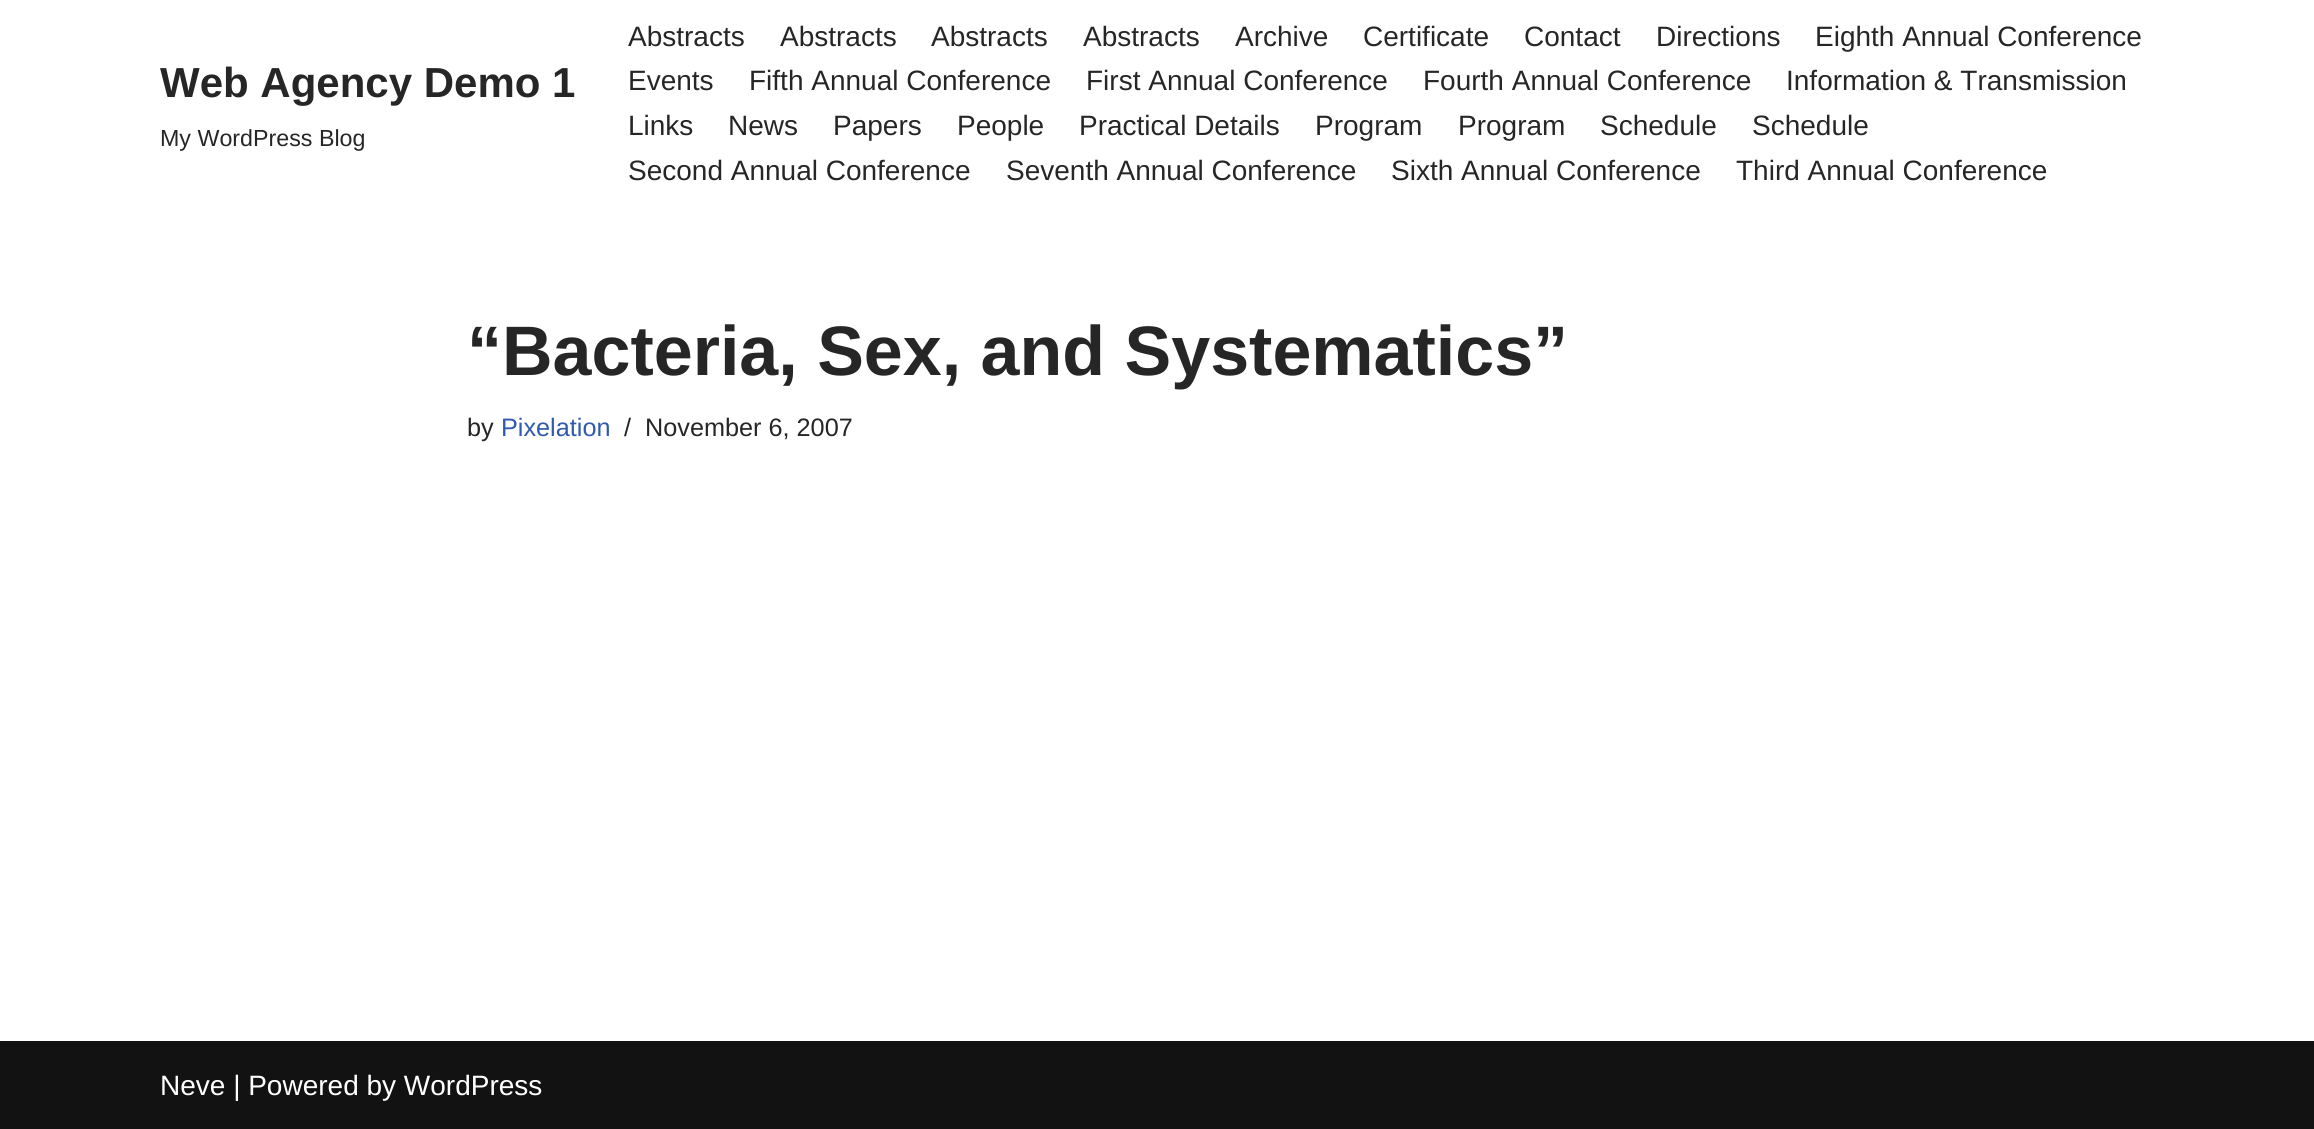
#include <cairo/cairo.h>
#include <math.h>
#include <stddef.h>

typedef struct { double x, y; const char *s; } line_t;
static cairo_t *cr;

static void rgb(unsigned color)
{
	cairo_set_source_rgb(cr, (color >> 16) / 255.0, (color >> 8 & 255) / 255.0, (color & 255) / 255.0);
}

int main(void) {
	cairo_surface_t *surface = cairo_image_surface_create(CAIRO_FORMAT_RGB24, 2314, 1129);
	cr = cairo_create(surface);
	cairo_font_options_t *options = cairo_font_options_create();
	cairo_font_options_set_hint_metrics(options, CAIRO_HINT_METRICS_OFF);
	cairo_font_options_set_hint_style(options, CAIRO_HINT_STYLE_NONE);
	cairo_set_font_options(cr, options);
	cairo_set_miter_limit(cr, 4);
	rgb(0xffffff);
	cairo_paint(cr);
	rgb(0x121212);
	cairo_rectangle(cr, 0, 1041, 2314, 88);
	cairo_fill(cr);
	cairo_select_font_face(cr, "Liberation Sans", CAIRO_FONT_SLANT_NORMAL, CAIRO_FONT_WEIGHT_BOLD);
	cairo_set_font_size(cr, 42);
	rgb(0x272626);
	cairo_move_to(cr, 160, 97);
	cairo_show_text(cr, "Web Agency Demo 1");
	cairo_select_font_face(cr, "Liberation Sans", CAIRO_FONT_SLANT_NORMAL, CAIRO_FONT_WEIGHT_NORMAL);
	cairo_set_font_size(cr, 23.25);
	cairo_move_to(cr, 160, 146);
	cairo_show_text(cr, "My WordPress Blog");
	cairo_set_font_size(cr, 28);
	{
		static const line_t items[] = {
			{628, 46, "Abstracts"},
			{780, 46, "Abstracts"},
			{931, 46, "Abstracts"},
			{1083, 46, "Abstracts"},
			{1235, 46, "Archive"},
			{1363, 46, "Certificate"},
			{1524, 46, "Contact"},
			{1656, 46, "Directions"},
			{1815, 46, "Eighth Annual Conference"},
			{628, 90, "Events"},
			{749, 90, "Fifth Annual Conference"},
			{1086, 90, "First Annual Conference"},
			{1423, 90, "Fourth Annual Conference"},
			{1786, 90, "Information & Transmission"},
			{628, 135, "Links"},
			{728, 135, "News"},
			{833, 135, "Papers"},
			{957, 135, "People"},
			{1079, 135, "Practical Details"},
			{1315, 135, "Program"},
			{1458, 135, "Program"},
			{1600, 135, "Schedule"},
			{1752, 135, "Schedule"},
			{628, 180, "Second Annual Conference"},
			{1006, 180, "Seventh Annual Conference"},
			{1391, 180, "Sixth Annual Conference"},
			{1736, 180, "Third Annual Conference"},
		};
		for (size_t i = 0; i < sizeof items / sizeof *items; i++) {
			cairo_move_to(cr, items[i].x, items[i].y);
			cairo_show_text(cr, items[i].s);
		}
	}
	cairo_select_font_face(cr, "Liberation Sans", CAIRO_FONT_SLANT_NORMAL, CAIRO_FONT_WEIGHT_BOLD);
	cairo_set_font_size(cr, 70);
	cairo_move_to(cr, 467, 375);
	cairo_show_text(cr, "“Bacteria, Sex, and Systematics”");
	cairo_select_font_face(cr, "Liberation Sans", CAIRO_FONT_SLANT_NORMAL, CAIRO_FONT_WEIGHT_NORMAL);
	cairo_set_font_size(cr, 25.25);
	cairo_move_to(cr, 467, 436);
	cairo_show_text(cr, "by");
	rgb(0x2f5aae);
	cairo_move_to(cr, 501, 436);
	cairo_show_text(cr, "Pixelation");
	rgb(0x272626);
	cairo_move_to(cr, 624, 436);
	cairo_show_text(cr, "/");
	cairo_move_to(cr, 645, 436);
	cairo_show_text(cr, "November 6, 2007");
	cairo_set_font_size(cr, 28);
	rgb(0xffffff);
	cairo_move_to(cr, 160, 1095);
	cairo_show_text(cr, "Neve | Powered by WordPress");
	cairo_surface_write_to_png(surface, "page.png");
	cairo_font_options_destroy(options);
	cairo_destroy(cr);
	cairo_surface_destroy(surface);
	return 0;
}
